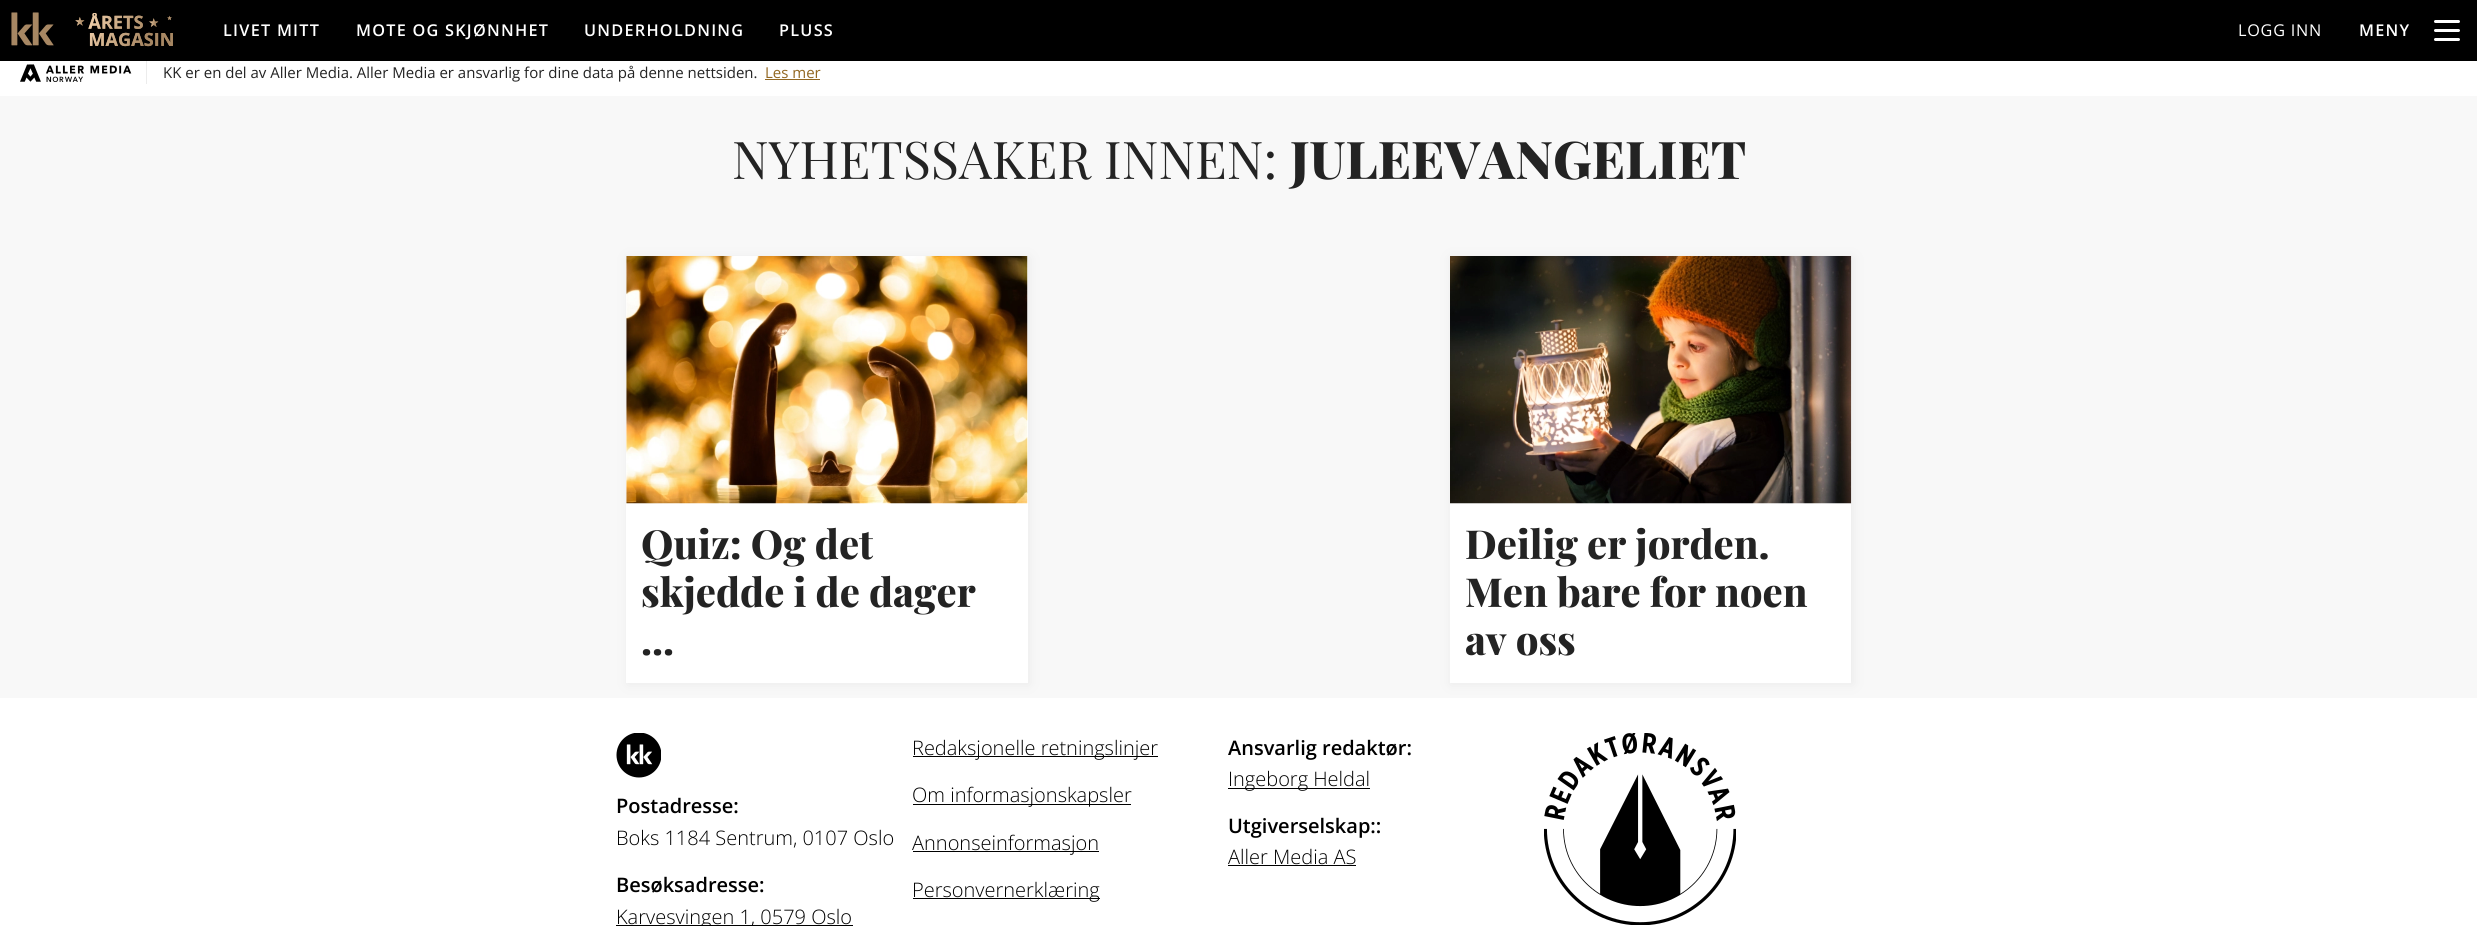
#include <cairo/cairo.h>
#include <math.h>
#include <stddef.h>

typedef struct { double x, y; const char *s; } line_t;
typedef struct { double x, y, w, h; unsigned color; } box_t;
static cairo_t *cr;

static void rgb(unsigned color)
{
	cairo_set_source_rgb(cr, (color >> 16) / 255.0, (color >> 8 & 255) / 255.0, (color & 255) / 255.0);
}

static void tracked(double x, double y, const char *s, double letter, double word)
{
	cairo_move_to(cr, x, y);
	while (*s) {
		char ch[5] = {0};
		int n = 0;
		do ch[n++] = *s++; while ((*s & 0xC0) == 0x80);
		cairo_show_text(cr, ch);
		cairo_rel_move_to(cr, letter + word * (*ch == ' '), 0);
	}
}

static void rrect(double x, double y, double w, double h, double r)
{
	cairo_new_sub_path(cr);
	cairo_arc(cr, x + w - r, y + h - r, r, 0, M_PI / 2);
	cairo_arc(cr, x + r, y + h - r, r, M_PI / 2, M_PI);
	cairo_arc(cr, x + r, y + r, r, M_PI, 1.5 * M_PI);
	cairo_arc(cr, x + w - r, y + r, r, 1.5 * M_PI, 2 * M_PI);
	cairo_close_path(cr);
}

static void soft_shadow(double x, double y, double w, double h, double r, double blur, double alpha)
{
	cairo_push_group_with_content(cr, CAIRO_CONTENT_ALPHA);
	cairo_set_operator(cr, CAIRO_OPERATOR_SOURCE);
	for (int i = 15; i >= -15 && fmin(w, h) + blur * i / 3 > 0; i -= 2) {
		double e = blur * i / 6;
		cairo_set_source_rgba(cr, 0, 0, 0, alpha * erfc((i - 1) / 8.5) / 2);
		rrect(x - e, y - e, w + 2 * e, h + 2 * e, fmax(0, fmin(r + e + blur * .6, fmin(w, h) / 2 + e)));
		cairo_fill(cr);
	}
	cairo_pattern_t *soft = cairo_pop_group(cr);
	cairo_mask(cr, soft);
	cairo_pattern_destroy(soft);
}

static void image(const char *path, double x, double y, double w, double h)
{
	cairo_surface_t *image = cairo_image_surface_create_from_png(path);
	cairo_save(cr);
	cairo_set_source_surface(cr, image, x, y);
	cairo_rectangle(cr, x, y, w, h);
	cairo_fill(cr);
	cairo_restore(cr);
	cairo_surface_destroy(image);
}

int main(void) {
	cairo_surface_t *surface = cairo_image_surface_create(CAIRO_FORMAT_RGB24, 2477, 926);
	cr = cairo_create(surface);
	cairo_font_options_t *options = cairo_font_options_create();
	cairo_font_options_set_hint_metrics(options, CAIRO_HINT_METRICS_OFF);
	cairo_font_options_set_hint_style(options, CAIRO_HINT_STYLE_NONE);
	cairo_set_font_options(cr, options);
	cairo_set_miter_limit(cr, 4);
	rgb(0xf8f8f8);
	cairo_paint(cr);
	rgb(0x000000);
	cairo_rectangle(cr, 0, 0, 2477, 61);
	cairo_fill(cr);
	image("img/1.png", 11, 12, 43, 34);
	image("img/2.png", 75, 13, 98, 34);
	rgb(0xffffff);
	rrect(2434, 20, 26, 3, 1.5);
	cairo_fill(cr);
	rrect(2434, 29, 26, 3, 1.5);
	cairo_fill(cr);
	rrect(2434, 38, 26, 3, 1.5);
	cairo_fill(cr);
	cairo_rectangle(cr, 0, 61, 2477, 35);
	cairo_fill(cr);
	image("img/3.png", 20, 64, 112, 18);
	rgb(0xececec);
	cairo_rectangle(cr, 146, 61, 1, 23);
	cairo_fill(cr);
	rgb(0x926722);
	cairo_rectangle(cr, 765, 79, 55, 1);
	cairo_fill(cr);
	rgb(0xeaeaea);
	soft_shadow(628, 258, 401, 426, 0, 6, 1);
	rgb(0xffffff);
	cairo_rectangle(cr, 626, 256, 402, 427);
	cairo_fill(cr);
	image("img/4.png", 626, 256, 402, 248);
	rgb(0xeaeaea);
	soft_shadow(1451, 258, 402, 426, 0, 6, 1);
	rgb(0xffffff);
	cairo_rectangle(cr, 1450, 503, 401, 180);
	cairo_fill(cr);
	image("img/5.png", 1450, 256, 402, 248);
	cairo_rectangle(cr, 0, 698, 2477, 228);
	cairo_fill(cr);
	image("img/6.png", 616, 733, 45, 45);
	{
		static const box_t items[] = {
			{616, 925, 237, 1, 0x000000},
			{913, 756, 245, 1, 0x000000},
			{913, 804, 218, 1, 0x000000},
			{913, 851, 186, 1, 0x000000},
			{913, 898, 187, 1, 0x000000},
			{1228, 788, 142, 1, 0x000000},
			{1228, 865, 128, 1, 0x000000},
		};
		for (size_t i = 0; i < sizeof items / sizeof *items; i++) {
			rgb(items[i].color);
			cairo_rectangle(cr, items[i].x, items[i].y, items[i].w, items[i].h);
			cairo_fill(cr);
		}
	}
	image("img/7.png", 1544, 733, 192, 192);
	cairo_select_font_face(cr, "Open Sans SemiBold", CAIRO_FONT_SLANT_NORMAL, CAIRO_FONT_WEIGHT_NORMAL);
	cairo_set_font_size(cr, 16.25);
	rgb(0xffffff);
	{
		static const line_t items[] = {
			{223, 36, "LIVET MITT"},
			{356, 36, "MOTE OG SKJØNNHET"},
			{584, 36, "UNDERHOLDNING"},
			{779, 36, "PLUSS"},
		};
		for (size_t i = 0; i < sizeof items / sizeof *items; i++) {
			tracked(items[i].x, items[i].y, items[i].s, 1.25, 0);
		}
	}
	cairo_select_font_face(cr, "Open Sans", CAIRO_FONT_SLANT_NORMAL, CAIRO_FONT_WEIGHT_NORMAL);
	tracked(2238, 36, "LOGG INN", 0.75, 0);
	cairo_select_font_face(cr, "Open Sans SemiBold", CAIRO_FONT_SLANT_NORMAL, CAIRO_FONT_WEIGHT_NORMAL);
	tracked(2359, 36, "MENY", 1.25, 0);
	cairo_select_font_face(cr, "Open Sans", CAIRO_FONT_SLANT_NORMAL, CAIRO_FONT_WEIGHT_NORMAL);
	cairo_set_font_size(cr, 15);
	rgb(0x232323);
	cairo_move_to(cr, 163, 78);
	cairo_show_text(cr, "KK er en del av Aller Media. Aller Media er ansvarlig for dine data på denne nettsiden.");
	rgb(0x926722);
	cairo_move_to(cr, 765, 78);
	cairo_show_text(cr, "Les mer");
	cairo_select_font_face(cr, "Playfair Display", CAIRO_FONT_SLANT_NORMAL, CAIRO_FONT_WEIGHT_NORMAL);
	cairo_set_font_size(cr, 52);
	rgb(0x232323);
	cairo_move_to(cr, 732, 179);
	cairo_show_text(cr, "NYHETSSAKER INNEN:");
	cairo_select_font_face(cr, "Playfair Display ExtraBold", CAIRO_FONT_SLANT_NORMAL, CAIRO_FONT_WEIGHT_NORMAL);
	cairo_move_to(cr, 1290, 179);
	cairo_show_text(cr, "JULEEVANGELIET");
	cairo_set_font_size(cr, 40);
	{
		static const line_t items[] = {
			{641, 559, "Quiz: Og det"},
			{641, 607, "skjedde i de dager"},
			{641, 655, "..."},
			{1465, 559, "Deilig er jorden."},
			{1465, 607, "Men bare for noen"},
			{1465, 655, "av oss"},
		};
		for (size_t i = 0; i < sizeof items / sizeof *items; i++) {
			cairo_move_to(cr, items[i].x, items[i].y);
			cairo_show_text(cr, items[i].s);
		}
	}
	cairo_select_font_face(cr, "Open Sans SemiBold", CAIRO_FONT_SLANT_NORMAL, CAIRO_FONT_WEIGHT_NORMAL);
	cairo_set_font_size(cr, 20);
	rgb(0x000000);
	cairo_move_to(cr, 616, 813);
	cairo_show_text(cr, "Postadresse:");
	cairo_select_font_face(cr, "Open Sans Light", CAIRO_FONT_SLANT_NORMAL, CAIRO_FONT_WEIGHT_NORMAL);
	cairo_move_to(cr, 616, 845);
	cairo_show_text(cr, "Boks 1184 Sentrum, 0107 Oslo");
	cairo_select_font_face(cr, "Open Sans SemiBold", CAIRO_FONT_SLANT_NORMAL, CAIRO_FONT_WEIGHT_NORMAL);
	cairo_move_to(cr, 616, 892);
	cairo_show_text(cr, "Besøksadresse:");
	cairo_select_font_face(cr, "Open Sans Light", CAIRO_FONT_SLANT_NORMAL, CAIRO_FONT_WEIGHT_NORMAL);
	{
		static const line_t items[] = {
			{616, 924, "Karvesvingen 1, 0579 Oslo"},
			{912, 755, "Redaksjonelle retningslinjer"},
			{912, 802, "Om informasjonskapsler"},
			{912, 850, "Annonseinformasjon"},
			{912, 897, "Personvernerklæring"},
		};
		for (size_t i = 0; i < sizeof items / sizeof *items; i++) {
			cairo_move_to(cr, items[i].x, items[i].y);
			cairo_show_text(cr, items[i].s);
		}
	}
	cairo_select_font_face(cr, "Open Sans SemiBold", CAIRO_FONT_SLANT_NORMAL, CAIRO_FONT_WEIGHT_NORMAL);
	cairo_move_to(cr, 1228, 755);
	cairo_show_text(cr, "Ansvarlig redaktør:");
	cairo_select_font_face(cr, "Open Sans Light", CAIRO_FONT_SLANT_NORMAL, CAIRO_FONT_WEIGHT_NORMAL);
	cairo_move_to(cr, 1228, 786);
	cairo_show_text(cr, "Ingeborg Heldal");
	cairo_select_font_face(cr, "Open Sans SemiBold", CAIRO_FONT_SLANT_NORMAL, CAIRO_FONT_WEIGHT_NORMAL);
	cairo_move_to(cr, 1228, 833);
	cairo_show_text(cr, "Utgiverselskap::");
	cairo_select_font_face(cr, "Open Sans Light", CAIRO_FONT_SLANT_NORMAL, CAIRO_FONT_WEIGHT_NORMAL);
	cairo_move_to(cr, 1228, 864);
	cairo_show_text(cr, "Aller Media AS");
	cairo_surface_write_to_png(surface, "page.png");
	cairo_font_options_destroy(options);
	cairo_destroy(cr);
	cairo_surface_destroy(surface);
	return 0;
}
